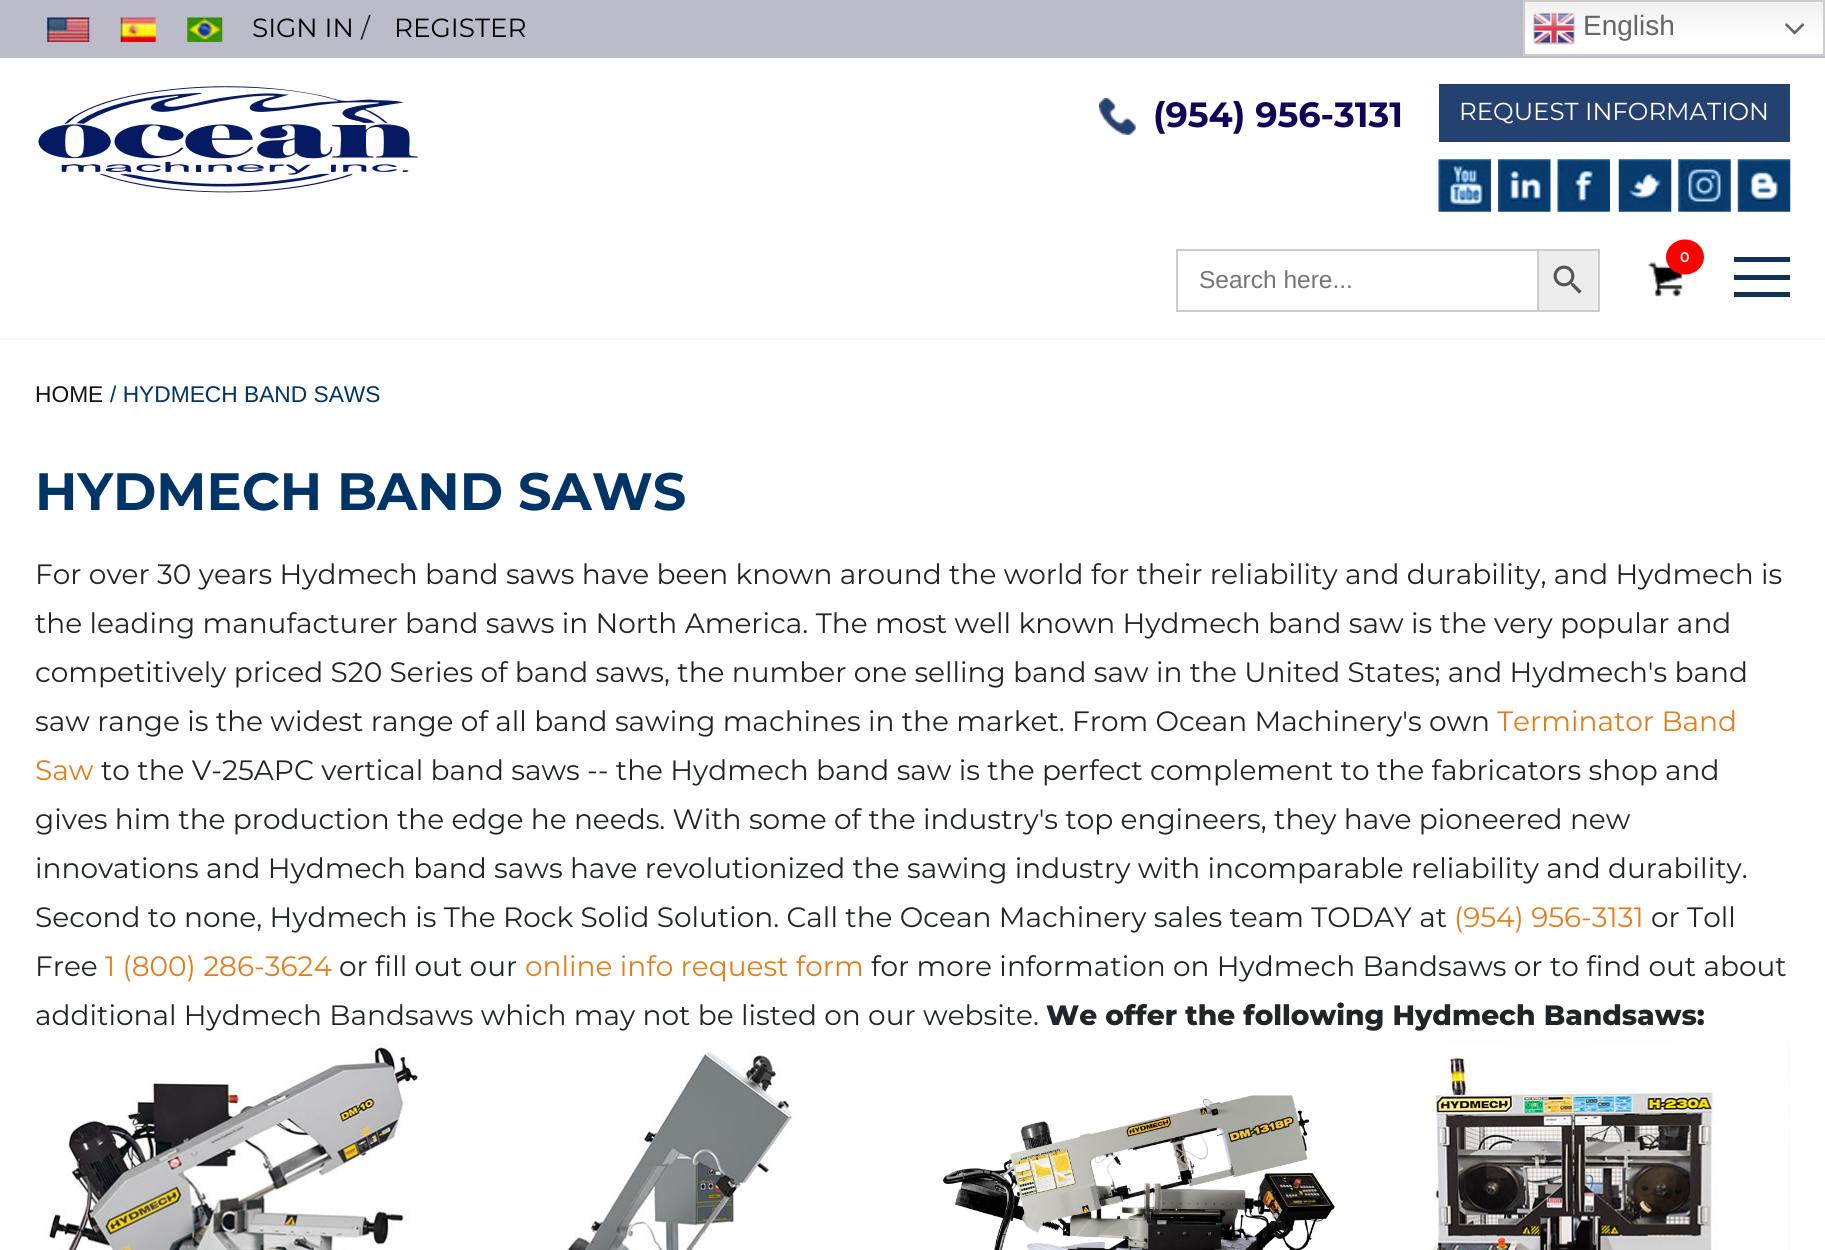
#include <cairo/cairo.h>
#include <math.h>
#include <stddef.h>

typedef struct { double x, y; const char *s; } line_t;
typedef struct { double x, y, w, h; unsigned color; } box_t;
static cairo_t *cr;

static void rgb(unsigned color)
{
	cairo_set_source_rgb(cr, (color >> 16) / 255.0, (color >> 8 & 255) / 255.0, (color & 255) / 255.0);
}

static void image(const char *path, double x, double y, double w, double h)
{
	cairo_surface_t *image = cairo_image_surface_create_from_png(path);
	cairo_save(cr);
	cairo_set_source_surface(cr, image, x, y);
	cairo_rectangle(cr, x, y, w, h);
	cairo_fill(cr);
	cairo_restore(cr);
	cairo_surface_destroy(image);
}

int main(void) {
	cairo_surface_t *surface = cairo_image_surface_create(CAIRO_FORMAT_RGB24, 1825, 1250);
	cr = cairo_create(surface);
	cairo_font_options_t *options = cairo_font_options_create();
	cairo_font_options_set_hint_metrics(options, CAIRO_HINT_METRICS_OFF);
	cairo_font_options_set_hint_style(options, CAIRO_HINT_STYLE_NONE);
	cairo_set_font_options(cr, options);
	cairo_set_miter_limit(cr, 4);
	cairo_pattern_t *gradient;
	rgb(0xffffff);
	cairo_paint(cr);
	rgb(0xf7f7f7);
	cairo_rectangle(cr, 0, 338, 1825, 2);
	cairo_fill(cr);
	rgb(0xbbbbc9);
	cairo_rectangle(cr, 0, 0, 1825, 58);
	cairo_fill(cr);
	image("img/1.png", 47, 17, 43, 25);
	image("img/2.png", 120, 17, 36, 25);
	image("img/3.png", 187, 17, 36, 25);
	image("img/4.png", 38, 86, 380, 107);
	image("img/5.png", 1099, 98, 37, 37);
	rgb(0x254170);
	cairo_rectangle(cr, 1439, 84, 351, 58);
	cairo_fill(cr);
	image("img/6.png", 1438, 159, 53, 53);
	image("img/7.png", 1498, 159, 53, 53);
	image("img/8.png", 1557, 159, 53, 53);
	image("img/9.png", 1618, 159, 54, 53);
	image("img/10.png", 1678, 159, 53, 53);
	image("img/11.png", 1737, 159, 54, 53);
	{
		static const box_t items[] = {
			{1176, 249, 361, 2, 0xcccccc},
			{1176, 310, 361, 2, 0xcccccc},
			{1176, 249, 2, 63, 0xcccccc},
		};
		for (size_t i = 0; i < sizeof items / sizeof *items; i++) {
			rgb(items[i].color);
			cairo_rectangle(cr, items[i].x, items[i].y, items[i].w, items[i].h);
			cairo_fill(cr);
		}
	}
	rgb(0xededed);
	cairo_rectangle(cr, 1538, 250, 61, 61);
	cairo_fill_preserve(cr);
	rgb(0xcccccc);
	cairo_stroke(cr);
	image("img/12.png", 1553, 265, 29, 29);
	image("img/13.png", 1648, 262, 35, 35);
	rgb(0xff0000);
	cairo_new_path(cr);
	cairo_move_to(cr, 1685, 239.5);
	cairo_curve_to(cr, 1695.5, 239.5, 1704, 247.5, 1704, 257);
	cairo_curve_to(cr, 1704, 266.5, 1695.5, 274.5, 1685, 274.5);
	cairo_curve_to(cr, 1674.5, 274.5, 1666, 266.5, 1666, 257);
	cairo_curve_to(cr, 1666, 247.5, 1674.5, 239.5, 1685, 239.5);
	cairo_close_path(cr);
	cairo_fill(cr);
	{
		static const box_t items[] = {
			{1734, 257, 56, 5, 0x103256},
			{1734, 275, 56, 5, 0x103256},
			{1734, 292, 56, 5, 0x103256},
		};
		for (size_t i = 0; i < sizeof items / sizeof *items; i++) {
			rgb(items[i].color);
			cairo_rectangle(cr, items[i].x, items[i].y, items[i].w, items[i].h);
			cairo_fill(cr);
		}
	}
	gradient = cairo_pattern_create_linear(1674, 0, 1674, 56);
	cairo_pattern_add_color_stop_rgba(gradient, 0, 0.937, 0.937, 0.937, 1);
	cairo_pattern_add_color_stop_rgba(gradient, 0.7, 1, 1, 1, 1);
	cairo_set_source(cr, gradient);
	cairo_pattern_destroy(gradient);
	cairo_rectangle(cr, 1525, 2, 298, 52);
	cairo_fill(cr);
	cairo_rectangle(cr, 1524, 1, 300, 54);
	rgb(0xcccccc);
	cairo_stroke(cr);
	image("img/14.png", 1533, 12, 42, 33);
	image("img/15.png", 1785, 23, 19, 12);
	image("img/16.png", 45, 1043, 374, 207);
	image("img/17.png", 567, 1049, 226, 201);
	image("img/18.png", 942, 1095, 393, 155);
	image("img/19.png", 1431, 1041, 359, 209);
	cairo_select_font_face(cr, "Montserrat", CAIRO_FONT_SLANT_NORMAL, CAIRO_FONT_WEIGHT_NORMAL);
	cairo_set_font_size(cr, 26.25);
	rgb(0x000000);
	cairo_move_to(cr, 252, 37);
	cairo_show_text(cr, "SIGN IN");
	rgb(0x212529);
	cairo_move_to(cr, 361, 37);
	cairo_show_text(cr, "/");
	rgb(0x000000);
	cairo_move_to(cr, 394, 37);
	cairo_show_text(cr, "REGISTER");
	cairo_select_font_face(cr, "Montserrat", CAIRO_FONT_SLANT_NORMAL, CAIRO_FONT_WEIGHT_BOLD);
	cairo_set_font_size(cr, 35);
	rgb(0x130256);
	cairo_move_to(cr, 1153, 127);
	cairo_show_text(cr, "(954) 956-3131");
	cairo_select_font_face(cr, "Montserrat", CAIRO_FONT_SLANT_NORMAL, CAIRO_FONT_WEIGHT_NORMAL);
	cairo_set_font_size(cr, 24.5);
	rgb(0xffffff);
	cairo_move_to(cr, 1459, 120);
	cairo_show_text(cr, "REQUEST INFORMATION");
	cairo_select_font_face(cr, "Liberation Sans", CAIRO_FONT_SLANT_NORMAL, CAIRO_FONT_WEIGHT_NORMAL);
	rgb(0x757575);
	cairo_move_to(cr, 1199, 288);
	cairo_show_text(cr, "Search here...");
	cairo_select_font_face(cr, "Montserrat SemiBold", CAIRO_FONT_SLANT_NORMAL, CAIRO_FONT_WEIGHT_NORMAL);
	cairo_set_font_size(cr, 14);
	rgb(0xffffff);
	cairo_move_to(cr, 1680, 262);
	cairo_show_text(cr, "0");
	cairo_select_font_face(cr, "Liberation Sans", CAIRO_FONT_SLANT_NORMAL, CAIRO_FONT_WEIGHT_NORMAL);
	cairo_set_font_size(cr, 28);
	rgb(0x666666);
	cairo_move_to(cr, 1583, 35);
	cairo_show_text(cr, "English");
	cairo_set_font_size(cr, 22.75);
	rgb(0x151211);
	cairo_move_to(cr, 35, 402);
	cairo_show_text(cr, "HOME");
	rgb(0x003466);
	cairo_move_to(cr, 110, 402);
	cairo_show_text(cr, "/ HYDMECH BAND SAWS");
	cairo_select_font_face(cr, "Montserrat", CAIRO_FONT_SLANT_NORMAL, CAIRO_FONT_WEIGHT_BOLD);
	cairo_set_font_size(cr, 52.5);
	cairo_move_to(cr, 35, 510);
	cairo_show_text(cr, "HYDMECH BAND SAWS");
	cairo_select_font_face(cr, "Montserrat", CAIRO_FONT_SLANT_NORMAL, CAIRO_FONT_WEIGHT_NORMAL);
	cairo_set_font_size(cr, 28);
	rgb(0x212529);
	{
		static const line_t items[] = {
			{35, 584, "For over 30 years Hydmech band saws have been known around the world for their reliability and durability, and Hydmech is"},
			{35, 633, "the leading manufacturer band saws in North America. The most well known Hydmech band saw is the very popular and"},
			{35, 682, "competitively priced S20 Series of band saws, the number one selling band saw in the United States; and Hydmech's band"},
			{35, 731, "saw range is the widest range of all band sawing machines in the market. From Ocean Machinery's own"},
		};
		for (size_t i = 0; i < sizeof items / sizeof *items; i++) {
			cairo_move_to(cr, items[i].x, items[i].y);
			cairo_show_text(cr, items[i].s);
		}
	}
	rgb(0xe27f1c);
	cairo_move_to(cr, 1497, 731);
	cairo_show_text(cr, "Terminator Band");
	cairo_move_to(cr, 35, 780);
	cairo_show_text(cr, "Saw");
	rgb(0x212529);
	{
		static const line_t items[] = {
			{101, 780, "to the V-25APC vertical band saws -- the Hydmech band saw is the perfect complement to the fabricators shop and"},
			{35, 829, "gives him the production the edge he needs. With some of the industry's top engineers, they have pioneered new"},
			{35, 878, "innovations and Hydmech band saws have revolutionized the sawing industry with incomparable reliability and durability."},
			{35, 927, "Second to none, Hydmech is The Rock Solid Solution. Call the Ocean Machinery sales team TODAY at"},
		};
		for (size_t i = 0; i < sizeof items / sizeof *items; i++) {
			cairo_move_to(cr, items[i].x, items[i].y);
			cairo_show_text(cr, items[i].s);
		}
	}
	rgb(0xe27f1c);
	cairo_move_to(cr, 1454, 927);
	cairo_show_text(cr, "(954) 956-3131");
	rgb(0x212529);
	cairo_move_to(cr, 1651, 927);
	cairo_show_text(cr, "or Toll");
	cairo_move_to(cr, 35, 976);
	cairo_show_text(cr, "Free");
	rgb(0xe27f1c);
	cairo_move_to(cr, 105, 976);
	cairo_show_text(cr, "1 (800) 286-3624");
	rgb(0x212529);
	cairo_move_to(cr, 339, 976);
	cairo_show_text(cr, "or fill out our");
	rgb(0xe27f1c);
	cairo_move_to(cr, 525, 976);
	cairo_show_text(cr, "online info request form");
	rgb(0x212529);
	cairo_move_to(cr, 871, 976);
	cairo_show_text(cr, "for more information on Hydmech Bandsaws or to find out about");
	cairo_move_to(cr, 35, 1025);
	cairo_show_text(cr, "additional Hydmech Bandsaws which may not be listed on our website.");
	cairo_select_font_face(cr, "Montserrat ExtraBold", CAIRO_FONT_SLANT_NORMAL, CAIRO_FONT_WEIGHT_NORMAL);
	cairo_move_to(cr, 1046, 1025);
	cairo_show_text(cr, "We offer the following Hydmech Bandsaws:");
	cairo_surface_write_to_png(surface, "page.png");
	cairo_font_options_destroy(options);
	cairo_destroy(cr);
	cairo_surface_destroy(surface);
	return 0;
}
